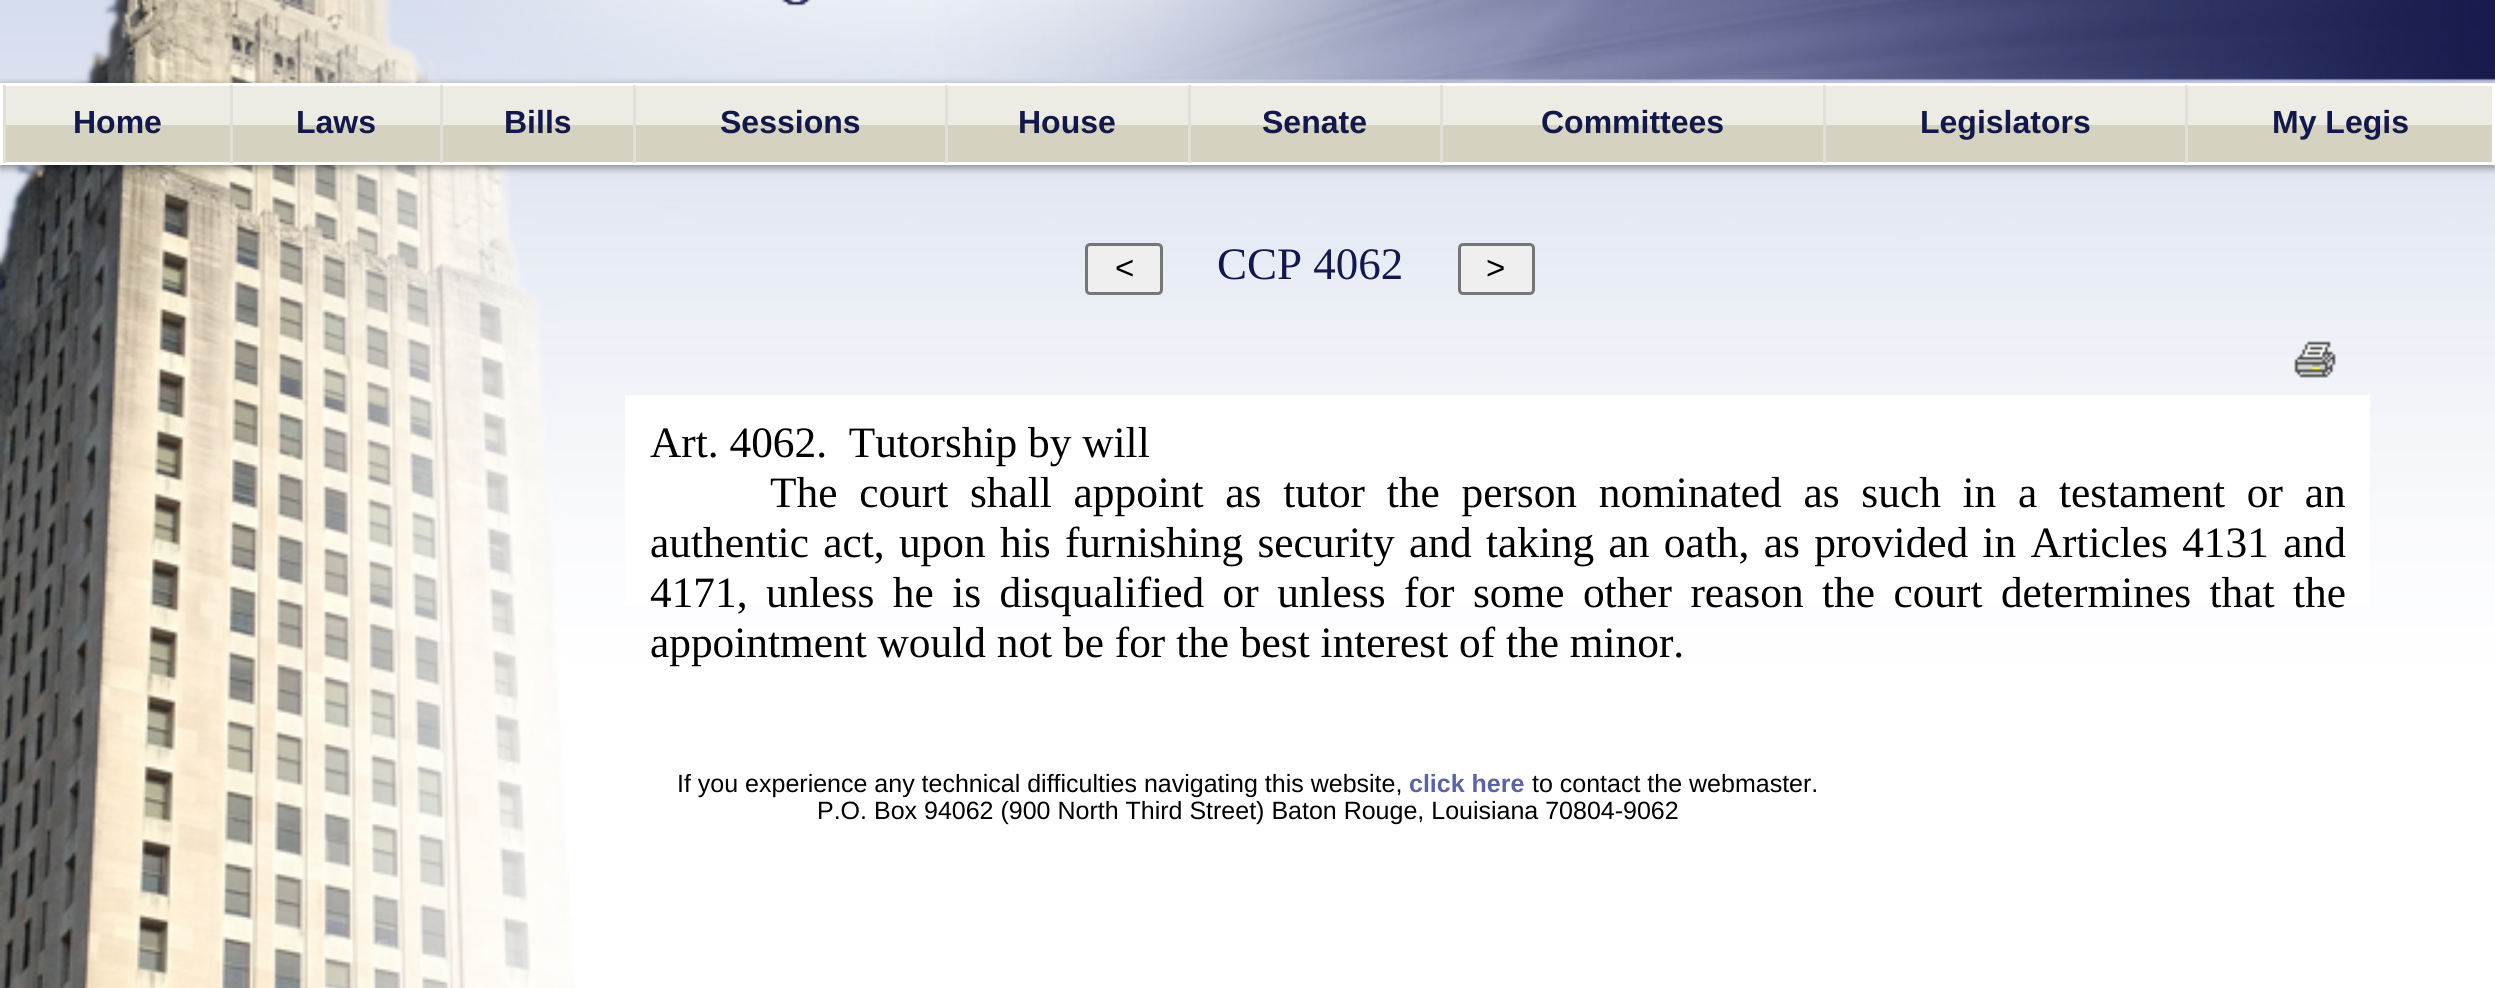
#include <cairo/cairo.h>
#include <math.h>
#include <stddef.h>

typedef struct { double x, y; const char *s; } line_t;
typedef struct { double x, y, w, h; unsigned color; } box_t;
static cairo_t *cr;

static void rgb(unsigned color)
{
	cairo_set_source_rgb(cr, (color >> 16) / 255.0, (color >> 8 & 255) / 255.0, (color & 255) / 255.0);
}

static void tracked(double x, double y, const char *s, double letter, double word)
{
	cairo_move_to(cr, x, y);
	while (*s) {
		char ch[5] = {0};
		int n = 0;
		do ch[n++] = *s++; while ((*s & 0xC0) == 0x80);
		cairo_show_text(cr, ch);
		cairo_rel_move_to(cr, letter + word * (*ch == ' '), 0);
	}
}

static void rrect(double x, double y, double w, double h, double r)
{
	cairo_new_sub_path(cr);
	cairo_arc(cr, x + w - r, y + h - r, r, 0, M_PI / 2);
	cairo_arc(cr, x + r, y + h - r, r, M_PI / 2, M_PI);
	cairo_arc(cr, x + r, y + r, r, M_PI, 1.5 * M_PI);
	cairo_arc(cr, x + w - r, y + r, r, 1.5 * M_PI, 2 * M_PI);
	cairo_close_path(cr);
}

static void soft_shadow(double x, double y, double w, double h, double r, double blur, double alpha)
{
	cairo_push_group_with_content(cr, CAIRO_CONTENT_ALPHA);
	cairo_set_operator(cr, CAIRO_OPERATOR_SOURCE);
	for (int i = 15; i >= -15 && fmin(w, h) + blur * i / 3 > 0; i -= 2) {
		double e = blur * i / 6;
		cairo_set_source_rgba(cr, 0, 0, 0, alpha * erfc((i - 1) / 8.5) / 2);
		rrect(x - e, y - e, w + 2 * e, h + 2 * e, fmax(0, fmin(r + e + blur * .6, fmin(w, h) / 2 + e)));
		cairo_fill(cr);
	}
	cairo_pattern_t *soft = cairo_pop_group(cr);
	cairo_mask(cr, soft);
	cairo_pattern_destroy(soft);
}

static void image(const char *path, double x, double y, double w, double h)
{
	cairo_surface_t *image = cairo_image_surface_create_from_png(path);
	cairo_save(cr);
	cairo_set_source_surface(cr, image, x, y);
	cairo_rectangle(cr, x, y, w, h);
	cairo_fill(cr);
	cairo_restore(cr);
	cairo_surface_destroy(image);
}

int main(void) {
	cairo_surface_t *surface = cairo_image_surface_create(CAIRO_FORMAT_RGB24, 2495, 988);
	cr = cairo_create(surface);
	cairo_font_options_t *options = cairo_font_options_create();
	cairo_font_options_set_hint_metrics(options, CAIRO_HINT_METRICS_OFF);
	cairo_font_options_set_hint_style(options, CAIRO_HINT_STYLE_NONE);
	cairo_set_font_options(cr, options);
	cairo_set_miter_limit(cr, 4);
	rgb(0xffffff);
	cairo_paint(cr);
	image("img/1.png", 0, 0, 2495, 988);
	rgb(0x000000);
	soft_shadow(0, 85, 2495, 83, 0, 4, 0.4);
	rgb(0xedece4);
	cairo_rectangle(cr, 6, 86, 2486, 39);
	cairo_fill(cr);
	rgb(0xd5d2c2);
	cairo_rectangle(cr, 6, 125, 2486, 37);
	cairo_fill(cr);
	cairo_rectangle(cr, 1.5, 84.5, 2492, 79);
	rgb(0xffffff);
	cairo_set_line_width(cr, 3);
	cairo_stroke(cr);
	{
		static const box_t items[] = {
			{3, 85, 3, 78, 0xe1dfd6},
			{230, 85, 3, 78, 0xe1dfd6},
			{440, 85, 3, 78, 0xe1dfd6},
			{633, 85, 3, 78, 0xe1dfd6},
			{945, 85, 3, 78, 0xe1dfd6},
			{1188, 85, 3, 78, 0xe1dfd6},
			{1440, 85, 3, 78, 0xe1dfd6},
			{1823, 85, 3, 78, 0xe1dfd6},
			{2185, 85, 3, 78, 0xe1dfd6},
		};
		for (size_t i = 0; i < sizeof items / sizeof *items; i++) {
			rgb(items[i].color);
			cairo_rectangle(cr, items[i].x, items[i].y, items[i].w, items[i].h);
			cairo_fill(cr);
		}
	}
	rgb(0xefefef);
	rrect(1086.5, 244.5, 75, 49, 3.5);
	cairo_fill_preserve(cr);
	rgb(0x767676);
	cairo_stroke(cr);
	rgb(0xefefef);
	rrect(1459.5, 244.5, 74, 49, 3.5);
	cairo_fill_preserve(cr);
	rgb(0x767676);
	cairo_stroke(cr);
	image("img/2.png", 2294, 341, 42, 37);
	rgb(0xffffff);
	cairo_rectangle(cr, 625, 395, 1745, 211);
	cairo_fill(cr);
	cairo_select_font_face(cr, "Liberation Sans", CAIRO_FONT_SLANT_NORMAL, CAIRO_FONT_WEIGHT_BOLD);
	cairo_set_font_size(cr, 32);
	rgb(0x13184a);
	{
		static const line_t items[] = {
			{73, 133, "Home"},
			{296, 133, "Laws"},
			{504, 133, "Bills"},
			{720, 133, "Sessions"},
			{1018, 133, "House"},
			{1262, 133, "Senate"},
			{1541, 133, "Committees"},
			{1920, 133, "Legislators"},
			{2272, 133, "My Legis"},
		};
		for (size_t i = 0; i < sizeof items / sizeof *items; i++) {
			cairo_move_to(cr, items[i].x, items[i].y);
			cairo_show_text(cr, items[i].s);
		}
	}
	cairo_select_font_face(cr, "Liberation Sans", CAIRO_FONT_SLANT_NORMAL, CAIRO_FONT_WEIGHT_NORMAL);
	cairo_set_font_size(cr, 33);
	rgb(0x000000);
	cairo_move_to(cr, 1115, 279);
	cairo_show_text(cr, "<");
	cairo_select_font_face(cr, "Liberation Serif", CAIRO_FONT_SLANT_NORMAL, CAIRO_FONT_WEIGHT_NORMAL);
	cairo_set_font_size(cr, 45);
	rgb(0x13184a);
	cairo_move_to(cr, 1217, 279);
	cairo_show_text(cr, "CCP 4062");
	cairo_select_font_face(cr, "Liberation Sans", CAIRO_FONT_SLANT_NORMAL, CAIRO_FONT_WEIGHT_NORMAL);
	cairo_set_font_size(cr, 33);
	rgb(0x000000);
	cairo_move_to(cr, 1486, 279);
	cairo_show_text(cr, ">");
	cairo_select_font_face(cr, "Liberation Serif", CAIRO_FONT_SLANT_NORMAL, CAIRO_FONT_WEIGHT_NORMAL);
	cairo_set_font_size(cr, 43.35);
	cairo_move_to(cr, 650, 457);
	cairo_show_text(cr, "Art. 4062.  Tutorship by will");
	tracked(770, 507, "The court shall appoint as tutor the person nominated as such in a testament or an", 0, 10.9);
	tracked(650, 557, "authentic act, upon his furnishing security and taking an oath, as provided in Articles 4131 and", 0, 3.5);
	tracked(650, 607, "4171, unless he is disqualified or unless for some other reason the court determines that the", 0, 7.6);
	cairo_move_to(cr, 650, 657);
	cairo_show_text(cr, "appointment would not be for the best interest of the minor.");
	cairo_select_font_face(cr, "Liberation Sans", CAIRO_FONT_SLANT_NORMAL, CAIRO_FONT_WEIGHT_NORMAL);
	cairo_set_font_size(cr, 25);
	cairo_move_to(cr, 677, 792);
	cairo_show_text(cr, "If you experience any technical difficulties navigating this website,");
	cairo_select_font_face(cr, "Liberation Sans", CAIRO_FONT_SLANT_NORMAL, CAIRO_FONT_WEIGHT_BOLD);
	rgb(0x5b63a1);
	cairo_move_to(cr, 1409, 792);
	cairo_show_text(cr, "click here");
	cairo_select_font_face(cr, "Liberation Sans", CAIRO_FONT_SLANT_NORMAL, CAIRO_FONT_WEIGHT_NORMAL);
	rgb(0x000000);
	cairo_move_to(cr, 1532, 792);
	cairo_show_text(cr, "to contact the webmaster.");
	cairo_move_to(cr, 817, 819);
	cairo_show_text(cr, "P.O. Box 94062 (900 North Third Street) Baton Rouge, Louisiana 70804-9062");
	cairo_surface_write_to_png(surface, "page.png");
	cairo_font_options_destroy(options);
	cairo_destroy(cr);
	cairo_surface_destroy(surface);
	return 0;
}
